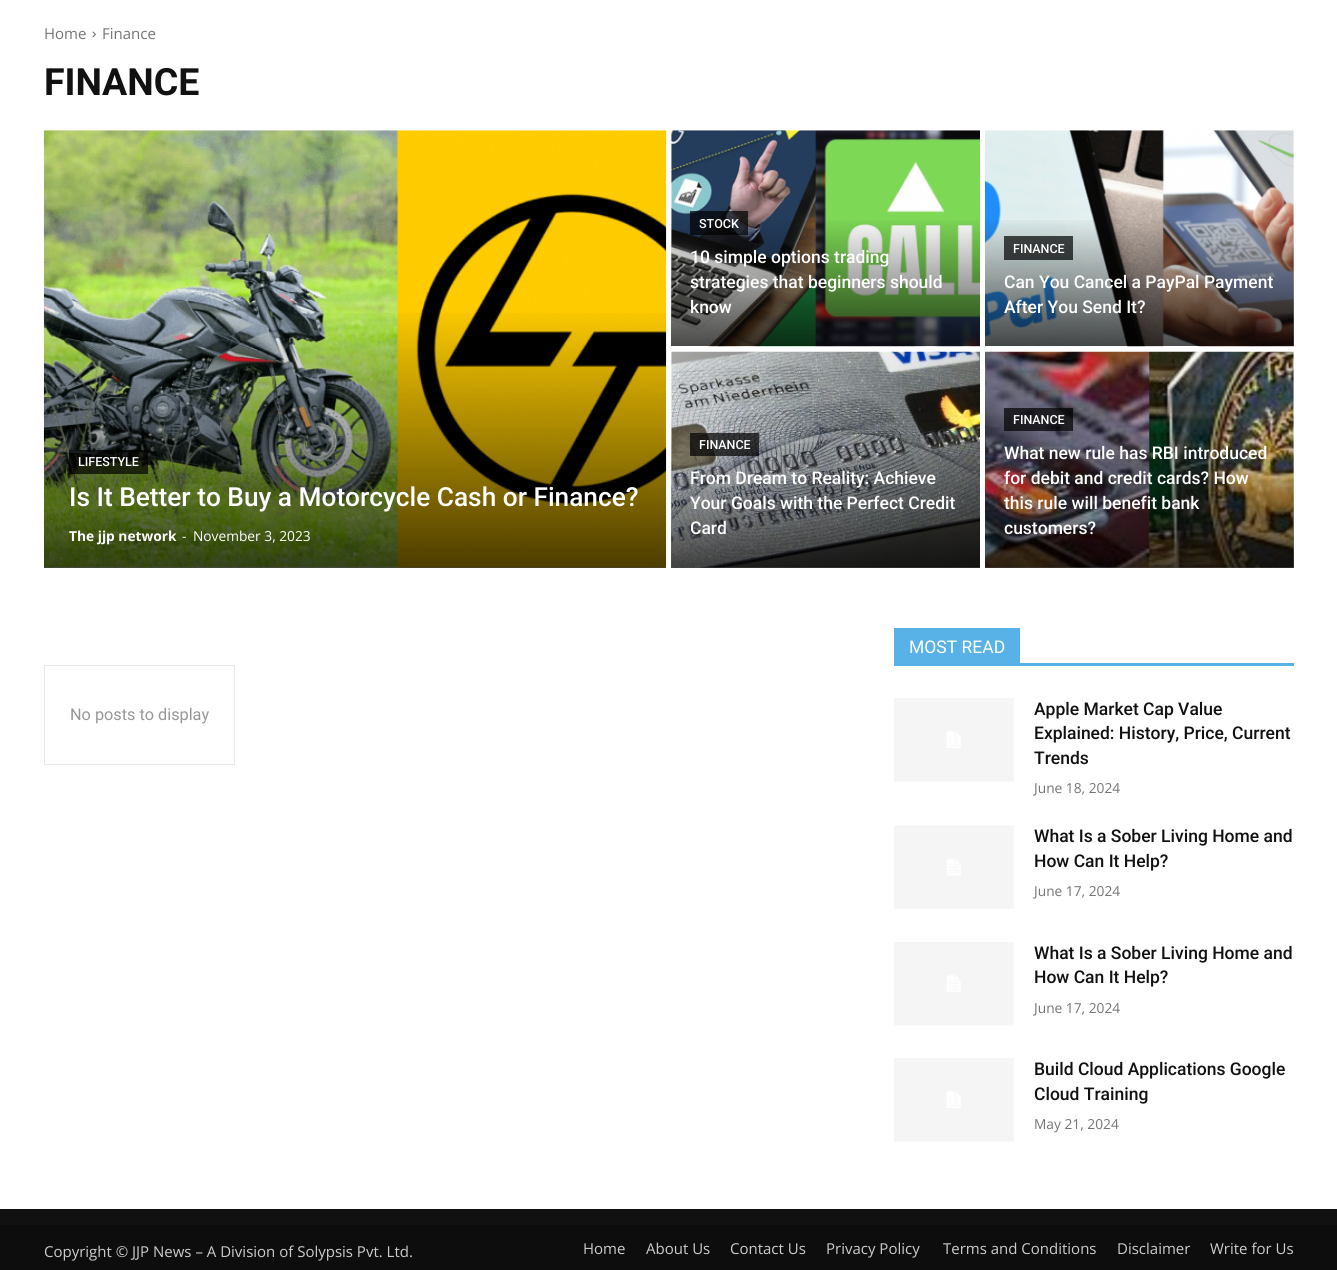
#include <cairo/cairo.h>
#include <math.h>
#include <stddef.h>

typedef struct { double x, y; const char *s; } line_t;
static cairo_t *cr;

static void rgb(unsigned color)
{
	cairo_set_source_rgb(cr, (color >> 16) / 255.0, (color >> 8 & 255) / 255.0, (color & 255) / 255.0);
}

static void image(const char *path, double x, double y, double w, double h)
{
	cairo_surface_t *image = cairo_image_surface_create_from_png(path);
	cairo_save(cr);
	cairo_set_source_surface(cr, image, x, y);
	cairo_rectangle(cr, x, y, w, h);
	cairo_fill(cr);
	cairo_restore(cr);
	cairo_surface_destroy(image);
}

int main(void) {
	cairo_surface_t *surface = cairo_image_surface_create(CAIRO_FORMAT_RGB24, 1337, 1270);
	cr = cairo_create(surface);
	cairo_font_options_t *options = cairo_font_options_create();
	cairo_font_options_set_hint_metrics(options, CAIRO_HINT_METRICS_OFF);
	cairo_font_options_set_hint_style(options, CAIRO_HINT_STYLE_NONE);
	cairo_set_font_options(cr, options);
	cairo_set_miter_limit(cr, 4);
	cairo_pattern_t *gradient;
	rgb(0xffffff);
	cairo_paint(cr);
	image("img/1.png", 92, 31, 4, 7);
	image("img/2.png", 43, 130, 624, 438);
	gradient = cairo_pattern_create_linear(355, 568, 355, 130);
	cairo_pattern_add_color_stop_rgba(gradient, 0, 0, 0, 0, 0.7);
	cairo_pattern_add_color_stop_rgba(gradient, 0.6, 0, 0, 0, 0);
	cairo_pattern_add_color_stop_rgba(gradient, 1, 0, 0, 0, 0);
	cairo_set_source(cr, gradient);
	cairo_pattern_destroy(gradient);
	cairo_rectangle(cr, 44, 313, 622, 255);
	cairo_fill(cr);
	cairo_set_source_rgba(cr, 0, 0, 0, 0.7);
	cairo_rectangle(cr, 69, 450, 79, 24);
	cairo_fill(cr);
	image("img/3.png", 671, 130, 309, 217);
	gradient = cairo_pattern_create_linear(826, 346, 826, 130);
	cairo_pattern_add_color_stop_rgba(gradient, 0, 0, 0, 0, 0.7);
	cairo_pattern_add_color_stop_rgba(gradient, 0.6, 0, 0, 0, 0);
	cairo_pattern_add_color_stop_rgba(gradient, 1, 0, 0, 0, 0);
	cairo_set_source(cr, gradient);
	cairo_pattern_destroy(gradient);
	cairo_rectangle(cr, 671, 220, 309, 126);
	cairo_fill(cr);
	cairo_set_source_rgba(cr, 0, 0, 0, 0.7);
	cairo_rectangle(cr, 690, 211, 58, 24);
	cairo_fill(cr);
	image("img/4.png", 985, 130, 309, 217);
	gradient = cairo_pattern_create_linear(1139, 346, 1139, 130);
	cairo_pattern_add_color_stop_rgba(gradient, 0, 0, 0, 0, 0.7);
	cairo_pattern_add_color_stop_rgba(gradient, 0.6, 0, 0, 0, 0);
	cairo_pattern_add_color_stop_rgba(gradient, 1, 0, 0, 0, 0);
	cairo_set_source(cr, gradient);
	cairo_pattern_destroy(gradient);
	cairo_rectangle(cr, 985, 220, 309, 126);
	cairo_fill(cr);
	cairo_set_source_rgba(cr, 0, 0, 0, 0.7);
	cairo_rectangle(cr, 1004, 236, 69, 24);
	cairo_fill(cr);
	image("img/5.png", 671, 351, 309, 217);
	gradient = cairo_pattern_create_linear(826, 568, 826, 351);
	cairo_pattern_add_color_stop_rgba(gradient, 0, 0, 0, 0, 0.7);
	cairo_pattern_add_color_stop_rgba(gradient, 0.6, 0, 0, 0, 0);
	cairo_pattern_add_color_stop_rgba(gradient, 1, 0, 0, 0, 0);
	cairo_set_source(cr, gradient);
	cairo_pattern_destroy(gradient);
	cairo_rectangle(cr, 671, 442, 309, 126);
	cairo_fill(cr);
	cairo_set_source_rgba(cr, 0, 0, 0, 0.7);
	cairo_rectangle(cr, 690, 433, 69, 23);
	cairo_fill(cr);
	image("img/6.png", 985, 351, 309, 217);
	gradient = cairo_pattern_create_linear(1139, 568, 1139, 351);
	cairo_pattern_add_color_stop_rgba(gradient, 0, 0, 0, 0, 0.7);
	cairo_pattern_add_color_stop_rgba(gradient, 0.6, 0, 0, 0, 0);
	cairo_pattern_add_color_stop_rgba(gradient, 1, 0, 0, 0, 0);
	cairo_set_source(cr, gradient);
	cairo_pattern_destroy(gradient);
	cairo_rectangle(cr, 985, 442, 309, 126);
	cairo_fill(cr);
	cairo_set_source_rgba(cr, 0, 0, 0, 0.7);
	cairo_rectangle(cr, 1004, 408, 69, 23);
	cairo_fill(cr);
	cairo_rectangle(cr, 44.5, 665.5, 190, 99);
	rgb(0xe8e8e8);
	cairo_set_line_width(cr, 1);
	cairo_stroke(cr);
	rgb(0x59b2e7);
	cairo_rectangle(cr, 894, 663, 400, 3);
	cairo_fill(cr);
	cairo_rectangle(cr, 894, 628, 126, 35);
	cairo_fill(cr);
	image("img/7.png", 894, 698, 120, 84);
	image("img/8.png", 894, 825, 120, 84);
	image("img/9.png", 894, 942, 120, 84);
	image("img/7.png", 894, 1058, 120, 84);
	rgb(0x111111);
	cairo_rectangle(cr, 0, 1209, 1337, 16);
	cairo_fill(cr);
	rgb(0x0d0d0d);
	cairo_rectangle(cr, 0, 1225, 1337, 45);
	cairo_fill(cr);
	cairo_select_font_face(cr, "Open Sans", CAIRO_FONT_SLANT_NORMAL, CAIRO_FONT_WEIGHT_NORMAL);
	cairo_set_font_size(cr, 15);
	rgb(0x747474);
	cairo_move_to(cr, 44, 39);
	cairo_show_text(cr, "Home");
	cairo_move_to(cr, 102, 39);
	cairo_show_text(cr, "Finance");
	cairo_select_font_face(cr, "Roboto", CAIRO_FONT_SLANT_NORMAL, CAIRO_FONT_WEIGHT_BOLD);
	cairo_set_font_size(cr, 37.5);
	rgb(0x111111);
	cairo_move_to(cr, 44, 95);
	cairo_show_text(cr, "FINANCE");
	cairo_select_font_face(cr, "Roboto Medium", CAIRO_FONT_SLANT_NORMAL, CAIRO_FONT_WEIGHT_NORMAL);
	cairo_set_font_size(cr, 12.5);
	rgb(0xffffff);
	cairo_move_to(cr, 78, 466);
	cairo_show_text(cr, "LIFESTYLE");
	cairo_set_font_size(cr, 26.25);
	cairo_move_to(cr, 69, 506);
	cairo_show_text(cr, "Is It Better to Buy a Motorcycle Cash or Finance?");
	cairo_select_font_face(cr, "Open Sans", CAIRO_FONT_SLANT_NORMAL, CAIRO_FONT_WEIGHT_BOLD);
	cairo_set_font_size(cr, 13.75);
	cairo_move_to(cr, 69, 541);
	cairo_show_text(cr, "The jjp network");
	cairo_select_font_face(cr, "Open Sans", CAIRO_FONT_SLANT_NORMAL, CAIRO_FONT_WEIGHT_NORMAL);
	cairo_move_to(cr, 182, 541);
	cairo_show_text(cr, "-");
	cairo_move_to(cr, 193, 541);
	cairo_show_text(cr, "November 3, 2023");
	cairo_select_font_face(cr, "Roboto Medium", CAIRO_FONT_SLANT_NORMAL, CAIRO_FONT_WEIGHT_NORMAL);
	cairo_set_font_size(cr, 12.5);
	cairo_move_to(cr, 699, 228);
	cairo_show_text(cr, "STOCK");
	cairo_set_font_size(cr, 17.5);
	{
		static const line_t items[] = {
			{690, 263, "10 simple options trading"},
			{690, 288, "strategies that beginners should"},
			{690, 313, "know"},
		};
		for (size_t i = 0; i < sizeof items / sizeof *items; i++) {
			cairo_move_to(cr, items[i].x, items[i].y);
			cairo_show_text(cr, items[i].s);
		}
	}
	cairo_set_font_size(cr, 12.5);
	cairo_move_to(cr, 1013, 253);
	cairo_show_text(cr, "FINANCE");
	cairo_set_font_size(cr, 17.5);
	cairo_move_to(cr, 1004, 288);
	cairo_show_text(cr, "Can You Cancel a PayPal Payment");
	cairo_move_to(cr, 1004, 313);
	cairo_show_text(cr, "After You Send It?");
	cairo_set_font_size(cr, 12.5);
	cairo_move_to(cr, 699, 449);
	cairo_show_text(cr, "FINANCE");
	cairo_set_font_size(cr, 17.5);
	{
		static const line_t items[] = {
			{690, 484, "From Dream to Reality: Achieve"},
			{690, 509, "Your Goals with the Perfect Credit"},
			{690, 534, "Card"},
		};
		for (size_t i = 0; i < sizeof items / sizeof *items; i++) {
			cairo_move_to(cr, items[i].x, items[i].y);
			cairo_show_text(cr, items[i].s);
		}
	}
	cairo_set_font_size(cr, 12.5);
	cairo_move_to(cr, 1013, 424);
	cairo_show_text(cr, "FINANCE");
	cairo_set_font_size(cr, 17.5);
	{
		static const line_t items[] = {
			{1004, 459, "What new rule has RBI introduced"},
			{1004, 484, "for debit and credit cards? How"},
			{1004, 509, "this rule will benefit bank"},
			{1004, 534, "customers?"},
		};
		for (size_t i = 0; i < sizeof items / sizeof *items; i++) {
			cairo_move_to(cr, items[i].x, items[i].y);
			cairo_show_text(cr, items[i].s);
		}
	}
	cairo_select_font_face(cr, "Roboto", CAIRO_FONT_SLANT_NORMAL, CAIRO_FONT_WEIGHT_NORMAL);
	cairo_set_font_size(cr, 16.25);
	rgb(0x979797);
	cairo_move_to(cr, 70, 720);
	cairo_show_text(cr, "No posts to display");
	cairo_set_font_size(cr, 17.5);
	rgb(0xffffff);
	cairo_move_to(cr, 909, 653);
	cairo_show_text(cr, "MOST READ");
	cairo_select_font_face(cr, "Roboto Medium", CAIRO_FONT_SLANT_NORMAL, CAIRO_FONT_WEIGHT_NORMAL);
	rgb(0x111111);
	{
		static const line_t items[] = {
			{1034, 715, "Apple Market Cap Value"},
			{1034, 739, "Explained: History, Price, Current"},
			{1034, 764, "Trends"},
		};
		for (size_t i = 0; i < sizeof items / sizeof *items; i++) {
			cairo_move_to(cr, items[i].x, items[i].y);
			cairo_show_text(cr, items[i].s);
		}
	}
	cairo_select_font_face(cr, "Open Sans", CAIRO_FONT_SLANT_NORMAL, CAIRO_FONT_WEIGHT_NORMAL);
	cairo_set_font_size(cr, 13.75);
	rgb(0x747474);
	cairo_move_to(cr, 1034, 793);
	cairo_show_text(cr, "June 18, 2024");
	cairo_select_font_face(cr, "Roboto Medium", CAIRO_FONT_SLANT_NORMAL, CAIRO_FONT_WEIGHT_NORMAL);
	cairo_set_font_size(cr, 17.5);
	rgb(0x111111);
	cairo_move_to(cr, 1034, 842);
	cairo_show_text(cr, "What Is a Sober Living Home and");
	cairo_move_to(cr, 1034, 867);
	cairo_show_text(cr, "How Can It Help?");
	cairo_select_font_face(cr, "Open Sans", CAIRO_FONT_SLANT_NORMAL, CAIRO_FONT_WEIGHT_NORMAL);
	cairo_set_font_size(cr, 13.75);
	rgb(0x747474);
	cairo_move_to(cr, 1034, 896);
	cairo_show_text(cr, "June 17, 2024");
	cairo_select_font_face(cr, "Roboto Medium", CAIRO_FONT_SLANT_NORMAL, CAIRO_FONT_WEIGHT_NORMAL);
	cairo_set_font_size(cr, 17.5);
	rgb(0x111111);
	cairo_move_to(cr, 1034, 959);
	cairo_show_text(cr, "What Is a Sober Living Home and");
	cairo_move_to(cr, 1034, 983);
	cairo_show_text(cr, "How Can It Help?");
	cairo_select_font_face(cr, "Open Sans", CAIRO_FONT_SLANT_NORMAL, CAIRO_FONT_WEIGHT_NORMAL);
	cairo_set_font_size(cr, 13.75);
	rgb(0x747474);
	cairo_move_to(cr, 1034, 1013);
	cairo_show_text(cr, "June 17, 2024");
	cairo_select_font_face(cr, "Roboto Medium", CAIRO_FONT_SLANT_NORMAL, CAIRO_FONT_WEIGHT_NORMAL);
	cairo_set_font_size(cr, 17.5);
	rgb(0x111111);
	cairo_move_to(cr, 1034, 1075);
	cairo_show_text(cr, "Build Cloud Applications Google");
	cairo_move_to(cr, 1034, 1100);
	cairo_show_text(cr, "Cloud Training");
	cairo_select_font_face(cr, "Open Sans", CAIRO_FONT_SLANT_NORMAL, CAIRO_FONT_WEIGHT_NORMAL);
	cairo_set_font_size(cr, 13.75);
	rgb(0x747474);
	cairo_move_to(cr, 1034, 1129);
	cairo_show_text(cr, "May 21, 2024");
	cairo_set_font_size(cr, 15);
	rgb(0xcccccc);
	{
		static const line_t items[] = {
			{44, 1257, "Copyright © JJP News – A Division of Solypsis Pvt. Ltd."},
			{583, 1254, "Home"},
			{646, 1254, "About Us"},
			{730, 1254, "Contact Us"},
			{826, 1254, "Privacy Policy"},
			{943, 1254, "Terms and Conditions"},
			{1117, 1254, "Disclaimer"},
			{1210, 1254, "Write for Us"},
		};
		for (size_t i = 0; i < sizeof items / sizeof *items; i++) {
			cairo_move_to(cr, items[i].x, items[i].y);
			cairo_show_text(cr, items[i].s);
		}
	}
	cairo_surface_write_to_png(surface, "page.png");
	cairo_font_options_destroy(options);
	cairo_destroy(cr);
	cairo_surface_destroy(surface);
	return 0;
}
